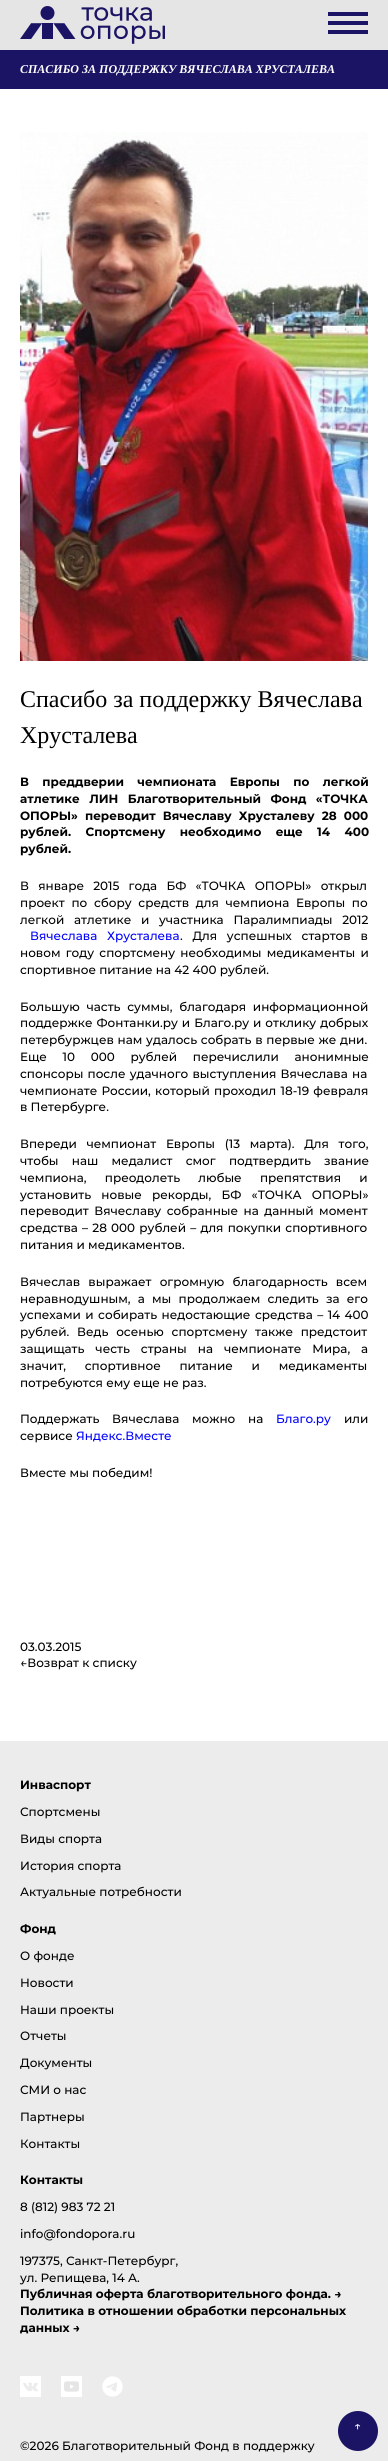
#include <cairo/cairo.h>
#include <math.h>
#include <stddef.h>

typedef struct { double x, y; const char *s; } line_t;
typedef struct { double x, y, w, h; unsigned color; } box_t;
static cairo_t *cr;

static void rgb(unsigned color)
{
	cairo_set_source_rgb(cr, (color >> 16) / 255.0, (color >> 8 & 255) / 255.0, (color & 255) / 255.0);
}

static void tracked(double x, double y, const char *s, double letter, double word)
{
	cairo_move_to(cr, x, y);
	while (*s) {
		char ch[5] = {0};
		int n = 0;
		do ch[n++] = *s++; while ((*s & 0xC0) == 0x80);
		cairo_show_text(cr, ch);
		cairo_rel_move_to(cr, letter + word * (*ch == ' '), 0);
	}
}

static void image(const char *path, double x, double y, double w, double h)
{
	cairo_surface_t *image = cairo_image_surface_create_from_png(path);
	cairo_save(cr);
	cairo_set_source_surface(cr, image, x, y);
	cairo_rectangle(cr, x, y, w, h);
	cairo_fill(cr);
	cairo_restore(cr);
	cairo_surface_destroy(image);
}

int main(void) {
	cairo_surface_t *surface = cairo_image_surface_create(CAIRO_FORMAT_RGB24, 388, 2461);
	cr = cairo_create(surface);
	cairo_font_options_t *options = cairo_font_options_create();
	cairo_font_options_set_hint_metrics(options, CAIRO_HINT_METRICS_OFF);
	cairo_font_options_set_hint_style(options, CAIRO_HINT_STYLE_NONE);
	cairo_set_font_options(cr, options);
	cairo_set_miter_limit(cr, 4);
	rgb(0xffffff);
	cairo_paint(cr);
	rgb(0xe6e5e5);
	cairo_rectangle(cr, 0, 0, 388, 50);
	cairo_fill(cr);
	image("img/1.png", 20, 6, 145, 38);
	{
		static const box_t items[] = {
			{328, 12, 40, 4, 0x1b1464},
			{328, 21, 40, 4, 0x1b1464},
			{328, 30, 40, 4, 0x1b1464},
			{0, 50, 388, 39, 0x1b1464},
		};
		for (size_t i = 0; i < sizeof items / sizeof *items; i++) {
			rgb(items[i].color);
			cairo_rectangle(cr, items[i].x, items[i].y, items[i].w, items[i].h);
			cairo_fill(cr);
		}
	}
	image("img/2.png", 20, 132, 348, 529);
	rgb(0xececec);
	cairo_rectangle(cr, 0, 1741, 388, 720);
	cairo_fill(cr);
	image("img/3.png", 20, 2376, 21, 21);
	image("img/4.png", 61, 2376, 21, 21);
	image("img/5.png", 102, 2376, 21, 21);
	rgb(0x1b1464);
	cairo_arc(cr, 358, 2431, 20, 0, 2 * M_PI);
	cairo_fill(cr);
	cairo_select_font_face(cr, "Liberation Serif", CAIRO_FONT_SLANT_ITALIC, CAIRO_FONT_WEIGHT_BOLD);
	cairo_set_font_size(cr, 12);
	rgb(0xffffff);
	cairo_move_to(cr, 20, 73);
	cairo_show_text(cr, "СПАСИБО ЗА ПОДДЕРЖКУ ВЯЧЕСЛАВА ХРУСТАЛЕВА");
	cairo_select_font_face(cr, "Liberation Serif", CAIRO_FONT_SLANT_NORMAL, CAIRO_FONT_WEIGHT_NORMAL);
	cairo_set_font_size(cr, 24);
	rgb(0x000000);
	cairo_move_to(cr, 20, 707);
	cairo_show_text(cr, "Спасибо за поддержку Вячеслава");
	cairo_move_to(cr, 20, 743);
	cairo_show_text(cr, "Хрусталева");
	cairo_select_font_face(cr, "Montserrat", CAIRO_FONT_SLANT_NORMAL, CAIRO_FONT_WEIGHT_BOLD);
	cairo_set_font_size(cr, 12);
	tracked(20, 786, "В преддверии чемпионата Европы по легкой", 0, 10);
	tracked(20, 803, "атлетике ЛИН Благотворительный Фонд «ТОЧКА", 0, 6);
	tracked(20, 820, "ОПОРЫ» переводит Вячеславу Хрусталеву 28 000", 0, 3.75);
	tracked(20, 836, "рублей. Спортсмену необходимо еще 14 400", 0, 11);
	cairo_move_to(cr, 20, 853);
	cairo_show_text(cr, "рублей.");
	cairo_select_font_face(cr, "Montserrat Medium", CAIRO_FONT_SLANT_NORMAL, CAIRO_FONT_WEIGHT_NORMAL);
	tracked(20, 890, "В январе 2015 года БФ «ТОЧКА ОПОРЫ» открыл", 0, 6);
	tracked(20, 907, "проект по сбору средств для чемпиона Европы по", 0, 3.5);
	tracked(20, 924, "легкой атлетике и участника Паралимпиады 2012", 0, 6.5);
	rgb(0x0000ff);
	tracked(30, 940, "Вячеслава Хрусталева", 0, 6.5);
	rgb(0x000000);
	tracked(180, 940, ". Для успешных стартов в", 0, 6.5);
	tracked(20, 957, "новом году спортсмену необходимы медикаменты и", 0, 2);
	cairo_move_to(cr, 20, 974);
	cairo_show_text(cr, "спортивное питание на 42 400 рублей.");
	tracked(20, 1011, "Большую часть суммы, благодаря информационной", 0, 3.5);
	tracked(20, 1027, "поддержке Фонтанки.ру и Благо.ру и отклику добрых", 0, 0.75);
	tracked(20, 1044, "петербуржцев нам удалось собрать в первые же дни.", 0, 0.5);
	tracked(20, 1061, "Еще 10 000 рублей перечислили анонимные", 0, 12.5);
	tracked(20, 1078, "спонсоры после удачного выступления Вячеслава на", 0, 1);
	tracked(20, 1095, "чемпионате России, который проходил 18-19 февраля", 0, 1);
	cairo_move_to(cr, 20, 1111);
	cairo_show_text(cr, "в Петербурге.");
	tracked(20, 1148, "Впереди чемпионат Европы (13 марта). Для того,", 0, 6.5);
	tracked(20, 1165, "чтобы наш медалист смог подтвердить звание", 0, 10);
	tracked(20, 1182, "чемпиона, преодолеть любые препятствия и", 0, 15);
	tracked(20, 1199, "установить новые рекорды, БФ «ТОЧКА ОПОРЫ»", 0, 7);
	tracked(20, 1215, "переводит Вячеславу собранные на данный момент", 0, 2.25);
	tracked(20, 1232, "средства – 28 000 рублей – для покупки спортивного", 0, 1);
	cairo_move_to(cr, 20, 1249);
	cairo_show_text(cr, "питания и медикаментов.");
	tracked(20, 1286, "Вячеслав выражает огромную благодарность всем", 0, 5);
	tracked(20, 1303, "неравнодушным, а мы продолжаем следить за его", 0, 4);
	tracked(20, 1319, "успехами и собирать недостающие средства – 14 400", 0, 1.25);
	tracked(20, 1336, "рублей. Ведь осенью спортсмену также предстоит", 0, 4.5);
	tracked(20, 1353, "защищать честь страны на чемпионате Мира, а", 0, 7.75);
	tracked(20, 1370, "значит, спортивное питание и медикаменты", 0, 15.5);
	cairo_move_to(cr, 20, 1387);
	cairo_show_text(cr, "потребуются ему еще не раз.");
	tracked(20, 1423, "Поддержать Вячеслава можно на", 0, 9.5);
	rgb(0x0000ff);
	cairo_move_to(cr, 276, 1423);
	cairo_show_text(cr, "Благо.ру");
	rgb(0x000000);
	cairo_move_to(cr, 344, 1423);
	cairo_show_text(cr, "или");
	cairo_move_to(cr, 20, 1440);
	cairo_show_text(cr, "сервисе");
	rgb(0x0000ff);
	cairo_move_to(cr, 76, 1440);
	cairo_show_text(cr, "Яндекс.Вместе");
	rgb(0x000000);
	{
		static const line_t items[] = {
			{20, 1477, "Вместе мы победим!"},
			{20, 1651, "03.03.2015"},
			{20, 1667, "←Возврат к списку"},
		};
		for (size_t i = 0; i < sizeof items / sizeof *items; i++) {
			cairo_move_to(cr, items[i].x, items[i].y);
			cairo_show_text(cr, items[i].s);
		}
	}
	cairo_select_font_face(cr, "Montserrat", CAIRO_FONT_SLANT_NORMAL, CAIRO_FONT_WEIGHT_BOLD);
	cairo_move_to(cr, 20, 1789);
	cairo_show_text(cr, "Инваспорт");
	cairo_select_font_face(cr, "Montserrat Medium", CAIRO_FONT_SLANT_NORMAL, CAIRO_FONT_WEIGHT_NORMAL);
	{
		static const line_t items[] = {
			{20, 1816, "Спортсмены"},
			{20, 1843, "Виды спорта"},
			{20, 1870, "История спорта"},
			{20, 1896, "Актуальные потребности"},
		};
		for (size_t i = 0; i < sizeof items / sizeof *items; i++) {
			cairo_move_to(cr, items[i].x, items[i].y);
			cairo_show_text(cr, items[i].s);
		}
	}
	cairo_select_font_face(cr, "Montserrat", CAIRO_FONT_SLANT_NORMAL, CAIRO_FONT_WEIGHT_BOLD);
	cairo_move_to(cr, 20, 1933);
	cairo_show_text(cr, "Фонд");
	cairo_select_font_face(cr, "Montserrat Medium", CAIRO_FONT_SLANT_NORMAL, CAIRO_FONT_WEIGHT_NORMAL);
	{
		static const line_t items[] = {
			{20, 1960, "О фонде"},
			{20, 1987, "Новости"},
			{20, 2014, "Наши проекты"},
			{20, 2040, "Отчеты"},
			{20, 2067, "Документы"},
			{20, 2094, "СМИ о нас"},
			{20, 2121, "Партнеры"},
			{20, 2148, "Контакты"},
		};
		for (size_t i = 0; i < sizeof items / sizeof *items; i++) {
			cairo_move_to(cr, items[i].x, items[i].y);
			cairo_show_text(cr, items[i].s);
		}
	}
	cairo_select_font_face(cr, "Montserrat", CAIRO_FONT_SLANT_NORMAL, CAIRO_FONT_WEIGHT_BOLD);
	cairo_move_to(cr, 20, 2184);
	cairo_show_text(cr, "Контакты");
	cairo_select_font_face(cr, "Montserrat Medium", CAIRO_FONT_SLANT_NORMAL, CAIRO_FONT_WEIGHT_NORMAL);
	{
		static const line_t items[] = {
			{20, 2211, "8 (812) 983 72 21"},
			{20, 2238, "info@fondopora.ru"},
			{20, 2265, "197375, Санкт-Петербург,"},
			{20, 2282, "ул. Репищева, 14 А."},
		};
		for (size_t i = 0; i < sizeof items / sizeof *items; i++) {
			cairo_move_to(cr, items[i].x, items[i].y);
			cairo_show_text(cr, items[i].s);
		}
	}
	cairo_select_font_face(cr, "Montserrat", CAIRO_FONT_SLANT_NORMAL, CAIRO_FONT_WEIGHT_BOLD);
	{
		static const line_t items[] = {
			{20, 2298, "Публичная оферта благотворительного фонда. →"},
			{20, 2315, "Политика в отношении обработки персональных"},
			{20, 2332, "данных →"},
		};
		for (size_t i = 0; i < sizeof items / sizeof *items; i++) {
			cairo_move_to(cr, items[i].x, items[i].y);
			cairo_show_text(cr, items[i].s);
		}
	}
	cairo_select_font_face(cr, "Montserrat Medium", CAIRO_FONT_SLANT_NORMAL, CAIRO_FONT_WEIGHT_NORMAL);
	cairo_move_to(cr, 20, 2450);
	cairo_show_text(cr, "©2026 Благотворительный Фонд в поддержку");
	rgb(0xffffff);
	cairo_move_to(cr, 354, 2430);
	cairo_show_text(cr, "↑");
	cairo_surface_write_to_png(surface, "page.png");
	cairo_font_options_destroy(options);
	cairo_destroy(cr);
	cairo_surface_destroy(surface);
	return 0;
}
